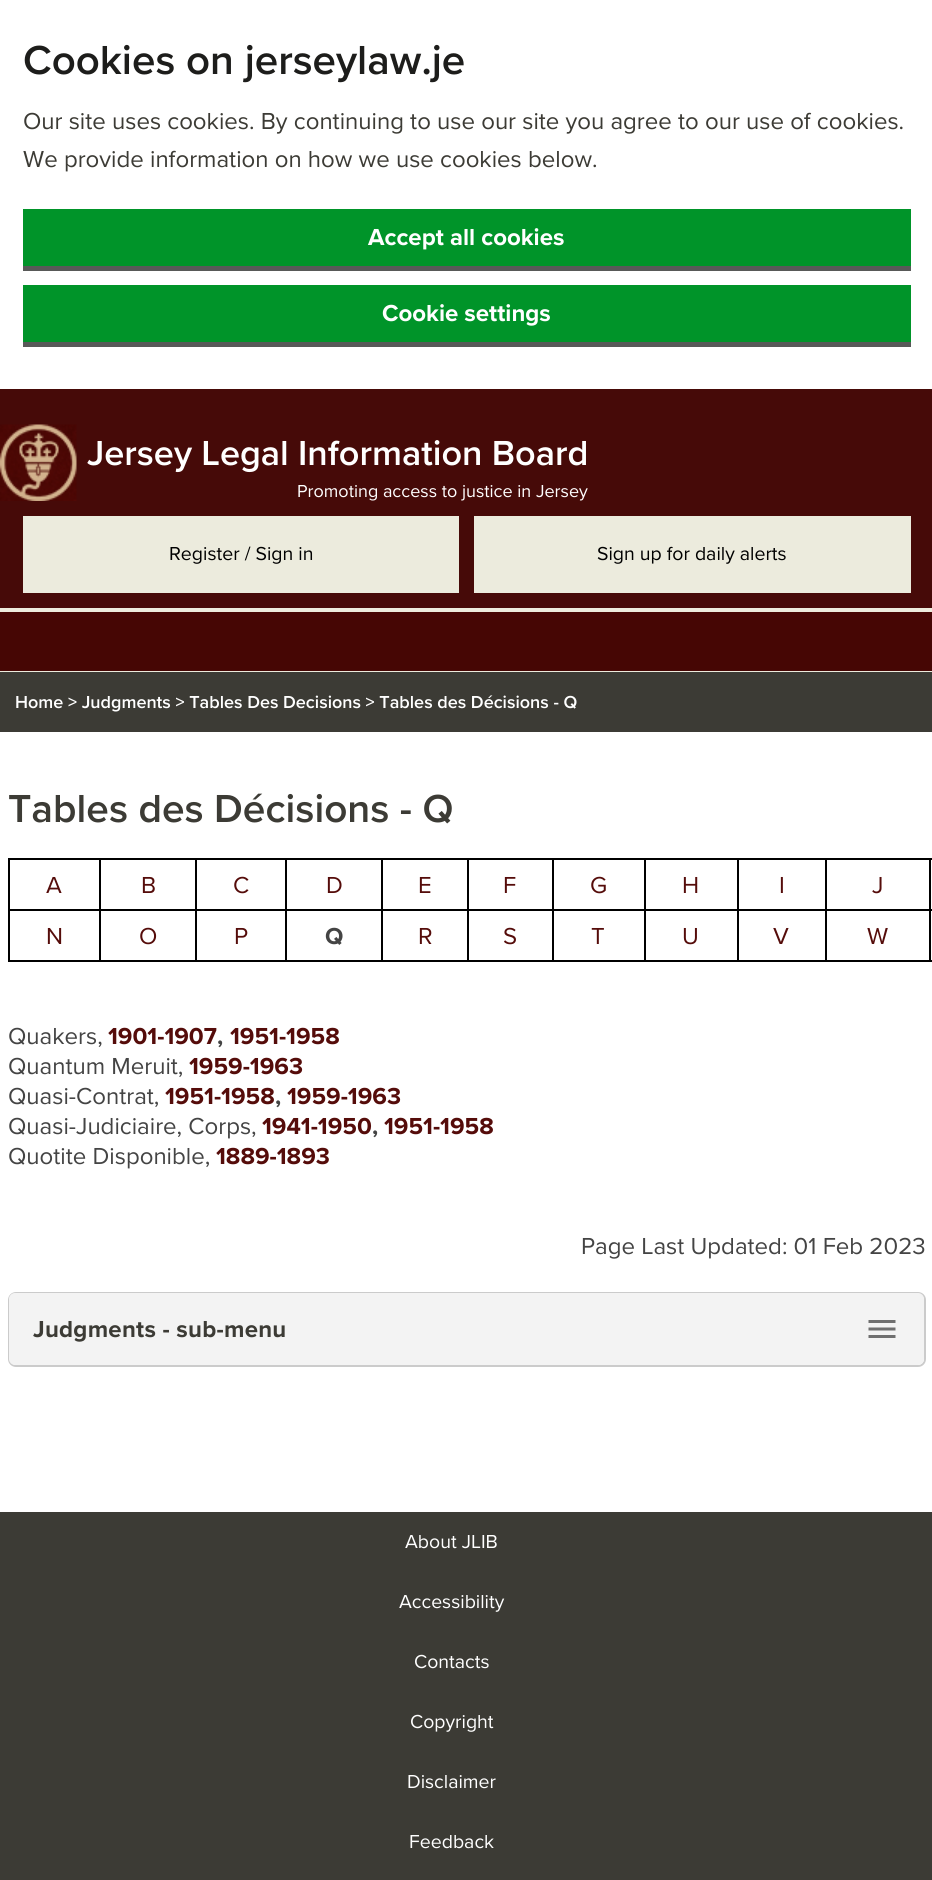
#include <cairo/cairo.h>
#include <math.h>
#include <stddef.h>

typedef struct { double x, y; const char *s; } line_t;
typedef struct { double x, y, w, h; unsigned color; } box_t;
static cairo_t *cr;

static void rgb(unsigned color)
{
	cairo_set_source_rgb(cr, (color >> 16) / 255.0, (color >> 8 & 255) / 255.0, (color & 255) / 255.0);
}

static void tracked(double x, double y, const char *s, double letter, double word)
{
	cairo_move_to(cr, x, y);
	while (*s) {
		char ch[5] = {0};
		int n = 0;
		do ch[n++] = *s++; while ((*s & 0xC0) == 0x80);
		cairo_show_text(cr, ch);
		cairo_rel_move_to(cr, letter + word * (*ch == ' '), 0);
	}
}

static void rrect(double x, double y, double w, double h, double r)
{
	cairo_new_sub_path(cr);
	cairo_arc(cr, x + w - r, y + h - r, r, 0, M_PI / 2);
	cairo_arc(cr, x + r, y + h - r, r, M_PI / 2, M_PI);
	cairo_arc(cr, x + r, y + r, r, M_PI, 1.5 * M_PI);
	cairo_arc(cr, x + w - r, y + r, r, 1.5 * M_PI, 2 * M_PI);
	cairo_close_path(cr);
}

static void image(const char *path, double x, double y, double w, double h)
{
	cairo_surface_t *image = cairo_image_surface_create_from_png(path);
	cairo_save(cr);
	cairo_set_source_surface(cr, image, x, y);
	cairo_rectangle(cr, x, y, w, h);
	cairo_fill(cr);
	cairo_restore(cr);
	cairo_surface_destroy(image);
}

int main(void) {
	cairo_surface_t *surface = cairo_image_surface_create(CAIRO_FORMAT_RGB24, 932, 1880);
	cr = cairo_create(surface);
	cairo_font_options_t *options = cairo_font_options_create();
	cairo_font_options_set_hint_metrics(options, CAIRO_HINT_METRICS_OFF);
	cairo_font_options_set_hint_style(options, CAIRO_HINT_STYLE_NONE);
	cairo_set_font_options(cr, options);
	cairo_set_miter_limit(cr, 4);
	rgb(0xffffff);
	cairo_paint(cr);
	{
		static const box_t items[] = {
			{23, 209, 888, 57, 0x009429},
			{23, 266, 888, 5, 0x585958},
			{23, 285, 888, 57, 0x009429},
			{23, 342, 888, 5, 0x585958},
			{0, 389, 932, 219, 0x460a08},
			{0, 608, 932, 4, 0xecebdd},
		};
		for (size_t i = 0; i < sizeof items / sizeof *items; i++) {
			rgb(items[i].color);
			cairo_rectangle(cr, items[i].x, items[i].y, items[i].w, items[i].h);
			cairo_fill(cr);
		}
	}
	image("img/1.png", 0, 424, 77, 77);
	{
		static const box_t items[] = {
			{23, 516, 436, 77, 0xecebdd},
			{474, 516, 437, 77, 0xecebdd},
			{0, 612, 932, 59, 0x460604},
			{0, 671, 932, 1, 0xecebdd},
			{0, 672, 932, 60, 0x3c3b35},
			{929, 858, 3, 2, 0x000000},
			{929, 909, 3, 2, 0x000000},
			{929, 960, 3, 2, 0x000000},
			{929, 909, 2, 53, 0x000000},
			{825, 909, 105, 2, 0x000000},
			{929, 858, 2, 53, 0x000000},
			{825, 858, 105, 2, 0x000000},
			{825, 960, 105, 2, 0x000000},
			{825, 909, 2, 53, 0x000000},
			{737, 909, 90, 2, 0x000000},
			{825, 858, 2, 53, 0x000000},
			{737, 858, 90, 2, 0x000000},
			{737, 960, 90, 2, 0x000000},
			{737, 909, 2, 53, 0x000000},
			{644, 909, 94, 2, 0x000000},
			{737, 858, 2, 53, 0x000000},
			{644, 858, 94, 2, 0x000000},
			{644, 960, 94, 2, 0x000000},
			{644, 909, 2, 53, 0x000000},
			{552, 909, 93, 2, 0x000000},
			{644, 858, 2, 53, 0x000000},
			{552, 858, 93, 2, 0x000000},
			{552, 960, 93, 2, 0x000000},
			{552, 909, 2, 53, 0x000000},
			{467, 909, 87, 2, 0x000000},
			{552, 858, 2, 53, 0x000000},
			{467, 858, 87, 2, 0x000000},
			{467, 960, 87, 2, 0x000000},
			{467, 909, 2, 53, 0x000000},
			{381, 909, 87, 2, 0x000000},
			{467, 858, 2, 53, 0x000000},
			{381, 858, 87, 2, 0x000000},
			{381, 960, 87, 2, 0x000000},
			{381, 909, 2, 53, 0x000000},
			{285, 909, 98, 2, 0x000000},
			{381, 858, 2, 53, 0x000000},
			{285, 858, 98, 2, 0x000000},
			{285, 960, 98, 2, 0x000000},
			{285, 909, 2, 53, 0x000000},
			{195, 909, 92, 2, 0x000000},
			{285, 858, 2, 53, 0x000000},
			{195, 858, 92, 2, 0x000000},
			{195, 960, 92, 2, 0x000000},
			{195, 909, 2, 53, 0x000000},
			{99, 909, 98, 2, 0x000000},
			{195, 858, 2, 53, 0x000000},
			{99, 858, 98, 2, 0x000000},
			{99, 960, 98, 2, 0x000000},
			{99, 909, 2, 53, 0x000000},
			{8, 909, 93, 2, 0x000000},
			{99, 858, 2, 53, 0x000000},
			{8, 858, 93, 2, 0x000000},
			{8, 960, 93, 2, 0x000000},
			{8, 909, 2, 53, 0x000000},
			{8, 858, 2, 53, 0x000000},
		};
		for (size_t i = 0; i < sizeof items / sizeof *items; i++) {
			rgb(items[i].color);
			cairo_rectangle(cr, items[i].x, items[i].y, items[i].w, items[i].h);
			cairo_fill(cr);
		}
	}
	rrect(9, 1293, 916, 73, 7);
	rgb(0xcbcbcb);
	cairo_stroke(cr);
	rgb(0xf3f3f3);
	rrect(9, 1293, 915, 72, 6);
	cairo_fill(cr);
	image("img/2.png", 868, 1320, 28, 18);
	rgb(0x3c3b35);
	cairo_rectangle(cr, 0, 1512, 932, 368);
	cairo_fill(cr);
	cairo_select_font_face(cr, "Proxima Nova SemiBold", CAIRO_FONT_SLANT_NORMAL, CAIRO_FONT_WEIGHT_NORMAL);
	cairo_set_font_size(cr, 42);
	rgb(0x1d1d1b);
	cairo_move_to(cr, 23, 74);
	cairo_show_text(cr, "Cookies on jerseylaw.je");
	cairo_select_font_face(cr, "Proxima Nova", CAIRO_FONT_SLANT_NORMAL, CAIRO_FONT_WEIGHT_NORMAL);
	cairo_set_font_size(cr, 24);
	rgb(0x3c3b35);
	cairo_move_to(cr, 23, 129);
	cairo_show_text(cr, "Our site uses cookies. By continuing to use our site you agree to our use of cookies.");
	cairo_move_to(cr, 23, 167);
	cairo_show_text(cr, "We provide information on how we use cookies below.");
	cairo_select_font_face(cr, "Proxima Nova", CAIRO_FONT_SLANT_NORMAL, CAIRO_FONT_WEIGHT_BOLD);
	rgb(0xffffff);
	cairo_move_to(cr, 368, 245);
	cairo_show_text(cr, "Accept all cookies");
	cairo_move_to(cr, 382, 321);
	cairo_show_text(cr, "Cookie settings");
	cairo_select_font_face(cr, "Proxima Nova SemiBold", CAIRO_FONT_SLANT_NORMAL, CAIRO_FONT_WEIGHT_NORMAL);
	cairo_set_font_size(cr, 36);
	cairo_move_to(cr, 87, 465);
	cairo_show_text(cr, "Jersey Legal Information Board");
	cairo_select_font_face(cr, "Proxima Nova", CAIRO_FONT_SLANT_NORMAL, CAIRO_FONT_WEIGHT_NORMAL);
	cairo_set_font_size(cr, 18);
	cairo_move_to(cr, 297, 497);
	cairo_show_text(cr, "Promoting access to justice in Jersey");
	cairo_set_font_size(cr, 19.5);
	rgb(0x000000);
	cairo_move_to(cr, 169, 560);
	cairo_show_text(cr, "Register / Sign in");
	cairo_move_to(cr, 597, 560);
	cairo_show_text(cr, "Sign up for daily alerts");
	cairo_select_font_face(cr, "Proxima Nova SemiBold", CAIRO_FONT_SLANT_NORMAL, CAIRO_FONT_WEIGHT_NORMAL);
	cairo_set_font_size(cr, 18);
	rgb(0xffffff);
	cairo_move_to(cr, 15, 708);
	cairo_show_text(cr, "Home > Judgments > Tables Des Decisions > Tables des Décisions - Q");
	cairo_set_font_size(cr, 40.5);
	rgb(0x3c3b35);
	cairo_move_to(cr, 8, 822);
	cairo_show_text(cr, "Tables des Décisions - Q");
	cairo_select_font_face(cr, "Proxima Nova", CAIRO_FONT_SLANT_NORMAL, CAIRO_FONT_WEIGHT_NORMAL);
	cairo_set_font_size(cr, 24);
	rgb(0x550c0a);
	{
		static const line_t items[] = {
			{46, 893, "A"},
			{141, 893, "B"},
			{233, 893, "C"},
			{326, 893, "D"},
			{418, 893, "E"},
			{503, 893, "F"},
			{590, 893, "G"},
			{682, 893, "H"},
			{779, 893, "I"},
			{872, 893, "J"},
			{46, 944, "N"},
			{139, 944, "O"},
			{234, 944, "P"},
		};
		for (size_t i = 0; i < sizeof items / sizeof *items; i++) {
			cairo_move_to(cr, items[i].x, items[i].y);
			cairo_show_text(cr, items[i].s);
		}
	}
	cairo_select_font_face(cr, "Proxima Nova", CAIRO_FONT_SLANT_NORMAL, CAIRO_FONT_WEIGHT_BOLD);
	rgb(0x444444);
	cairo_move_to(cr, 325, 944);
	cairo_show_text(cr, "Q");
	cairo_select_font_face(cr, "Proxima Nova", CAIRO_FONT_SLANT_NORMAL, CAIRO_FONT_WEIGHT_NORMAL);
	rgb(0x550c0a);
	{
		static const line_t items[] = {
			{418, 944, "R"},
			{503, 944, "S"},
			{591, 944, "T"},
			{682, 944, "U"},
			{773, 944, "V"},
			{867, 944, "W"},
		};
		for (size_t i = 0; i < sizeof items / sizeof *items; i++) {
			cairo_move_to(cr, items[i].x, items[i].y);
			cairo_show_text(cr, items[i].s);
		}
	}
	rgb(0x444444);
	cairo_move_to(cr, 8, 1044);
	cairo_show_text(cr, "Quakers,");
	cairo_select_font_face(cr, "Proxima Nova", CAIRO_FONT_SLANT_NORMAL, CAIRO_FONT_WEIGHT_BOLD);
	rgb(0x550c0a);
	cairo_move_to(cr, 108, 1044);
	cairo_show_text(cr, "1901-1907");
	rgb(0x444444);
	cairo_move_to(cr, 217, 1044);
	cairo_show_text(cr, ",");
	rgb(0x550c0a);
	cairo_move_to(cr, 230, 1044);
	cairo_show_text(cr, "1951-1958");
	cairo_select_font_face(cr, "Proxima Nova", CAIRO_FONT_SLANT_NORMAL, CAIRO_FONT_WEIGHT_NORMAL);
	rgb(0x444444);
	cairo_move_to(cr, 8, 1074);
	cairo_show_text(cr, "Quantum Meruit,");
	cairo_select_font_face(cr, "Proxima Nova", CAIRO_FONT_SLANT_NORMAL, CAIRO_FONT_WEIGHT_BOLD);
	rgb(0x550c0a);
	cairo_move_to(cr, 189, 1074);
	cairo_show_text(cr, "1959-1963");
	cairo_select_font_face(cr, "Proxima Nova", CAIRO_FONT_SLANT_NORMAL, CAIRO_FONT_WEIGHT_NORMAL);
	rgb(0x444444);
	cairo_move_to(cr, 8, 1104);
	cairo_show_text(cr, "Quasi-Contrat,");
	cairo_select_font_face(cr, "Proxima Nova", CAIRO_FONT_SLANT_NORMAL, CAIRO_FONT_WEIGHT_BOLD);
	rgb(0x550c0a);
	cairo_move_to(cr, 165, 1104);
	cairo_show_text(cr, "1951-1958");
	rgb(0x444444);
	cairo_move_to(cr, 275, 1104);
	cairo_show_text(cr, ",");
	rgb(0x550c0a);
	cairo_move_to(cr, 287, 1104);
	cairo_show_text(cr, "1959-1963");
	cairo_select_font_face(cr, "Proxima Nova", CAIRO_FONT_SLANT_NORMAL, CAIRO_FONT_WEIGHT_NORMAL);
	rgb(0x444444);
	cairo_move_to(cr, 8, 1134);
	cairo_show_text(cr, "Quasi-Judiciaire, Corps,");
	cairo_select_font_face(cr, "Proxima Nova", CAIRO_FONT_SLANT_NORMAL, CAIRO_FONT_WEIGHT_BOLD);
	rgb(0x550c0a);
	cairo_move_to(cr, 262, 1134);
	cairo_show_text(cr, "1941-1950");
	rgb(0x444444);
	cairo_move_to(cr, 372, 1134);
	cairo_show_text(cr, ",");
	rgb(0x550c0a);
	cairo_move_to(cr, 384, 1134);
	cairo_show_text(cr, "1951-1958");
	cairo_select_font_face(cr, "Proxima Nova", CAIRO_FONT_SLANT_NORMAL, CAIRO_FONT_WEIGHT_NORMAL);
	rgb(0x444444);
	cairo_move_to(cr, 8, 1164);
	cairo_show_text(cr, "Quotite Disponible,");
	cairo_select_font_face(cr, "Proxima Nova", CAIRO_FONT_SLANT_NORMAL, CAIRO_FONT_WEIGHT_BOLD);
	rgb(0x550c0a);
	cairo_move_to(cr, 216, 1164);
	cairo_show_text(cr, "1889-1893");
	cairo_select_font_face(cr, "Proxima Nova", CAIRO_FONT_SLANT_NORMAL, CAIRO_FONT_WEIGHT_NORMAL);
	rgb(0x444444);
	cairo_move_to(cr, 581, 1254);
	cairo_show_text(cr, "Page Last Updated: 01 Feb 2023");
	cairo_select_font_face(cr, "Proxima Nova", CAIRO_FONT_SLANT_NORMAL, CAIRO_FONT_WEIGHT_BOLD);
	rgb(0x3c3b35);
	tracked(33, 1337, "Judgments - sub-menu", 0.25, 0);
	cairo_select_font_face(cr, "Proxima Nova", CAIRO_FONT_SLANT_NORMAL, CAIRO_FONT_WEIGHT_NORMAL);
	cairo_set_font_size(cr, 19.5);
	rgb(0xffffff);
	{
		static const line_t items[] = {
			{405, 1548, "About JLIB"},
			{399, 1608, "Accessibility"},
			{414, 1668, "Contacts"},
			{410, 1728, "Copyright"},
			{407, 1788, "Disclaimer"},
			{409, 1848, "Feedback"},
		};
		for (size_t i = 0; i < sizeof items / sizeof *items; i++) {
			cairo_move_to(cr, items[i].x, items[i].y);
			cairo_show_text(cr, items[i].s);
		}
	}
	cairo_surface_write_to_png(surface, "page.png");
	cairo_font_options_destroy(options);
	cairo_destroy(cr);
	cairo_surface_destroy(surface);
	return 0;
}
